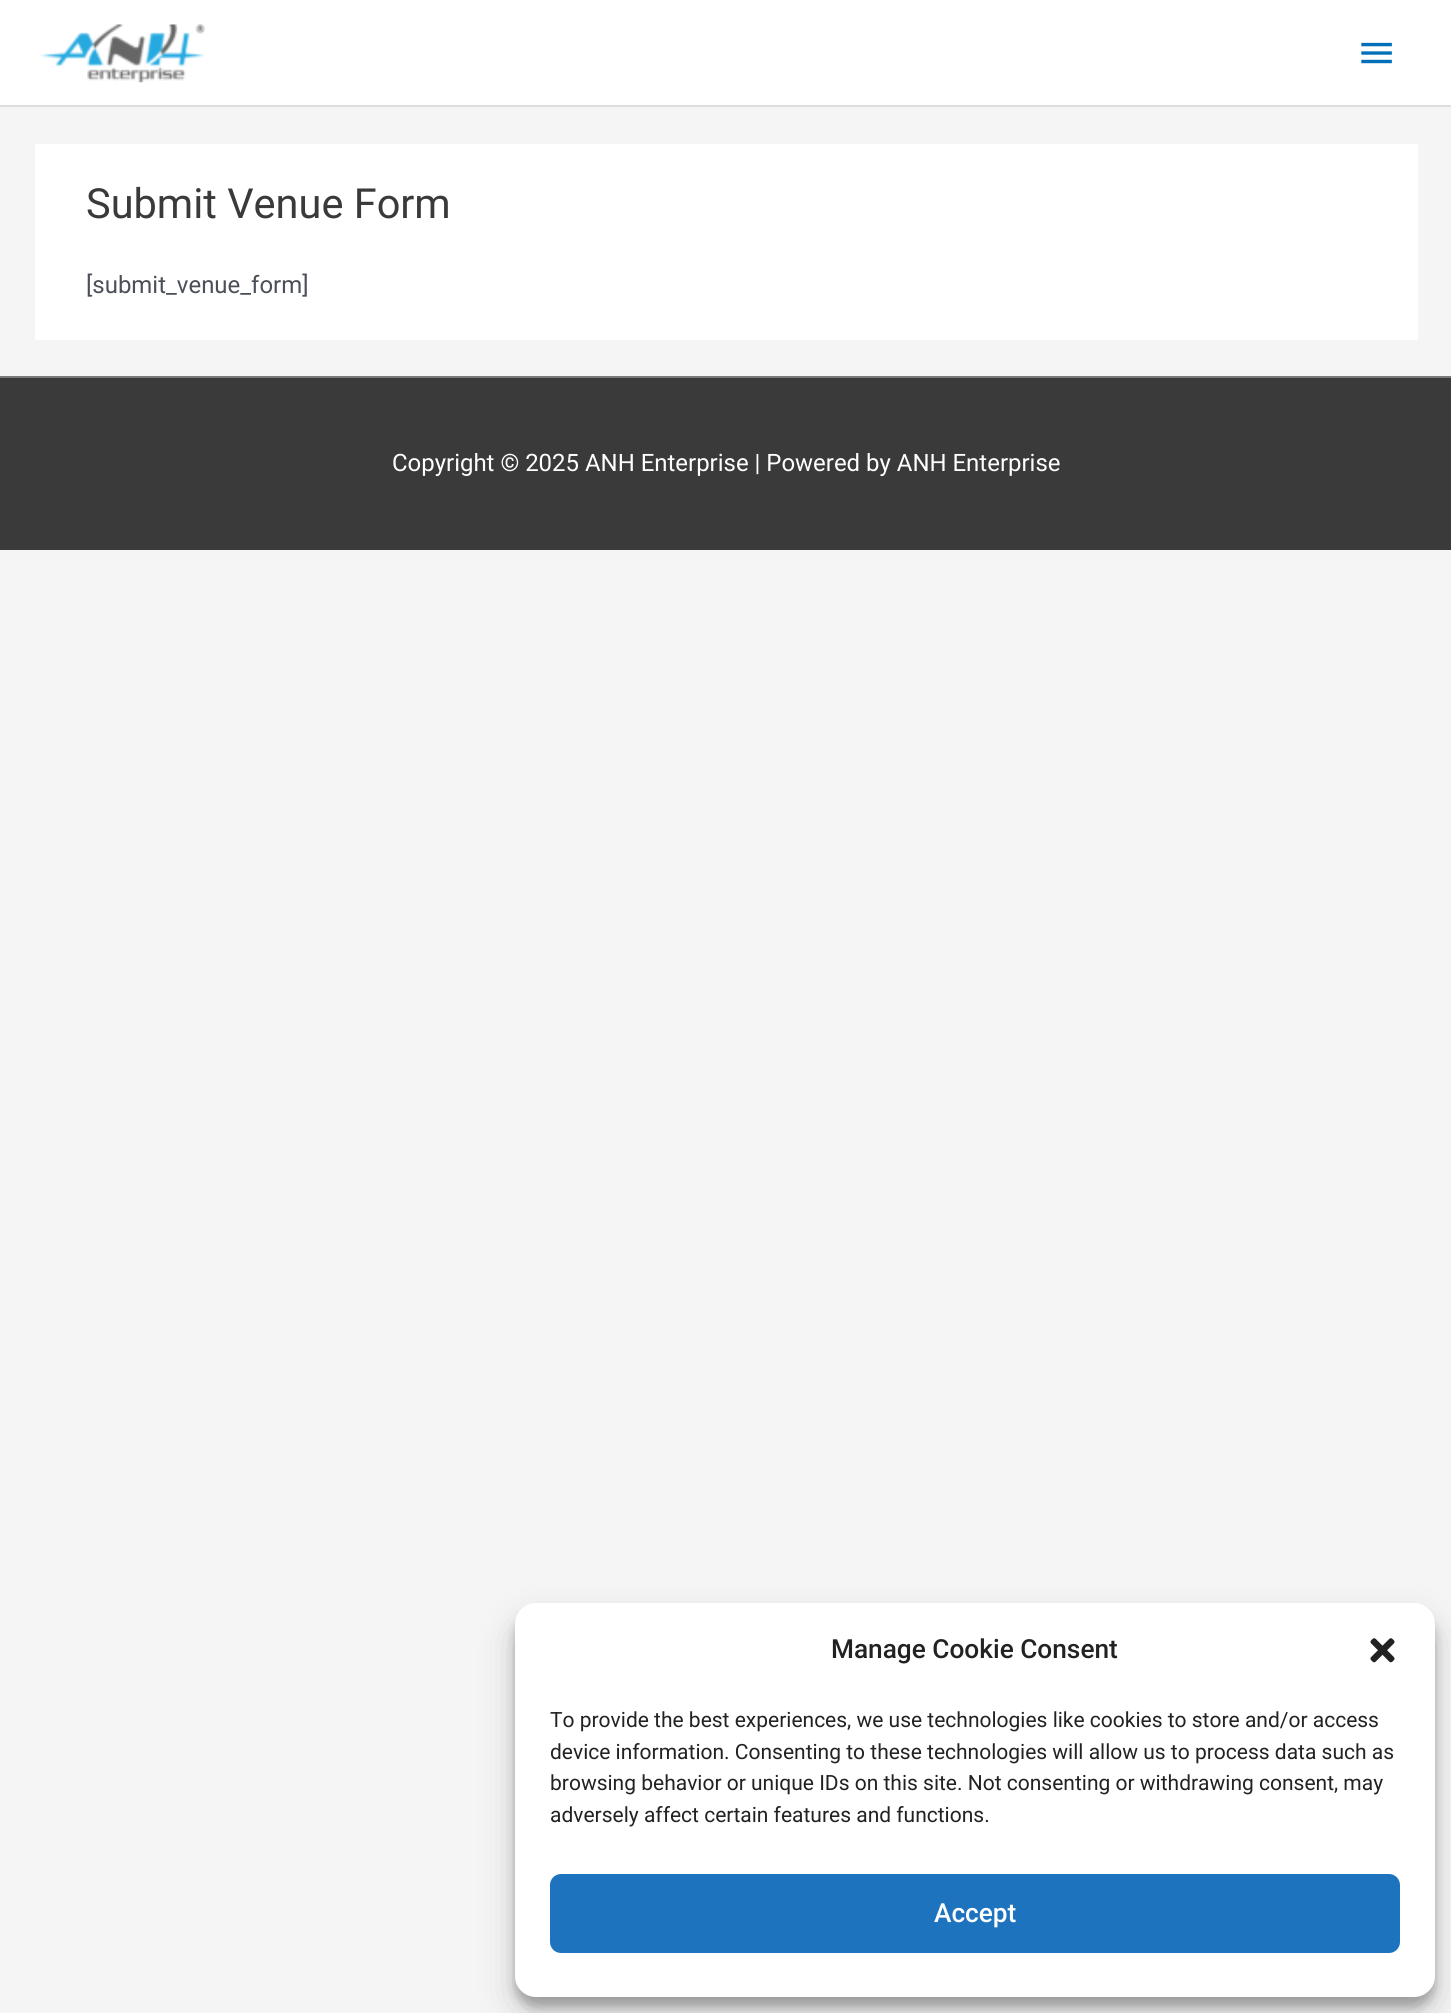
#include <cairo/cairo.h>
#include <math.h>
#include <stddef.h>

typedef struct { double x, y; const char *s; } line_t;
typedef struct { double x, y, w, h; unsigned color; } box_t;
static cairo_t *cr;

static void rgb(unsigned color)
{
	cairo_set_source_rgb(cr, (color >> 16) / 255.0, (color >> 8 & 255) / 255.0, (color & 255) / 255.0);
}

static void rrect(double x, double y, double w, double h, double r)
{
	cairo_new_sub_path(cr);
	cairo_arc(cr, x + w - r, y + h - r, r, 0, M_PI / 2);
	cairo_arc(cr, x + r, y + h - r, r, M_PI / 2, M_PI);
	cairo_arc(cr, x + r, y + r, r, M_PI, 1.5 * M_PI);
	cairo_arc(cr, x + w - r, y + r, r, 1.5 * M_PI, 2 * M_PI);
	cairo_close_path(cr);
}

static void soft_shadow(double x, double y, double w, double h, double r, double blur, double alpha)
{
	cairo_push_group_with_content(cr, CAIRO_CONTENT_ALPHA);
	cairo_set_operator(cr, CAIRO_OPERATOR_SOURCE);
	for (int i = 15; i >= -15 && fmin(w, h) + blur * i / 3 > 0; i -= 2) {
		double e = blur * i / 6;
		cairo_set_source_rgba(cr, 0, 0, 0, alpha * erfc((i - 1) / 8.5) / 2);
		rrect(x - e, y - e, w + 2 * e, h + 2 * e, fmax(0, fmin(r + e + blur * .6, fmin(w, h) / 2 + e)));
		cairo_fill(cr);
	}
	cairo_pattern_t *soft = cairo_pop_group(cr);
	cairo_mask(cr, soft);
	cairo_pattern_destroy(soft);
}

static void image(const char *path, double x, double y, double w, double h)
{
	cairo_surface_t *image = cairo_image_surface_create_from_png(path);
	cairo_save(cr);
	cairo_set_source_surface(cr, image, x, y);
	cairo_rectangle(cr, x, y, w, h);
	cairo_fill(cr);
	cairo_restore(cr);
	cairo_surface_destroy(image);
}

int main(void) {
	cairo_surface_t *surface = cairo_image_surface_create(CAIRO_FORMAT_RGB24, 1451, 2013);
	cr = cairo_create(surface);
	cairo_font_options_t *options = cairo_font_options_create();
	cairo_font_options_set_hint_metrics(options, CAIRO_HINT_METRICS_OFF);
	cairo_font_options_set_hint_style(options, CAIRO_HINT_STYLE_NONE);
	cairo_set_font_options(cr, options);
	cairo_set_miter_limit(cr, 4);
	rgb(0xf5f5f5);
	cairo_paint(cr);
	rgb(0xffffff);
	cairo_rectangle(cr, 0, 0, 1451, 105);
	cairo_fill(cr);
	rgb(0xdddddd);
	cairo_rectangle(cr, 0, 105, 1451, 2);
	cairo_fill(cr);
	image("img/1.png", 40, 24, 165, 59);
	image("img/2.png", 1361, 42, 31, 22);
	{
		static const box_t items[] = {
			{35, 144, 1383, 196, 0xffffff},
			{0, 376, 1451, 2, 0x7a7a7a},
			{0, 378, 1451, 172, 0x3a3a3a},
		};
		for (size_t i = 0; i < sizeof items / sizeof *items; i++) {
			rgb(items[i].color);
			cairo_rectangle(cr, items[i].x, items[i].y, items[i].w, items[i].h);
			cairo_fill(cr);
		}
	}
	rgb(0x000000);
	soft_shadow(515, 1614, 920, 393, 21, 5, 0.23);
	soft_shadow(515, 1621, 920, 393, 21, 17.5, 0.19);
	rgb(0xffffff);
	rrect(515, 1603, 920, 394, 21);
	cairo_fill(cr);
	image("img/3.png", 1370, 1638, 25, 25);
	rgb(0x1e73be);
	rrect(551, 1875, 848, 77, 10);
	cairo_fill_preserve(cr);
	cairo_stroke(cr);
	cairo_select_font_face(cr, "Roboto", CAIRO_FONT_SLANT_NORMAL, CAIRO_FONT_WEIGHT_NORMAL);
	cairo_set_font_size(cr, 41.5);
	rgb(0x3a3a3a);
	cairo_move_to(cr, 86, 218);
	cairo_show_text(cr, "Submit Venue Form");
	cairo_set_font_size(cr, 23.95);
	rgb(0x4b4f58);
	cairo_move_to(cr, 86, 293);
	cairo_show_text(cr, "[submit_venue_form]");
	rgb(0xffffff);
	cairo_move_to(cr, 392, 471);
	cairo_show_text(cr, "Copyright © 2025 ANH Enterprise | Powered by ANH Enterprise");
	cairo_select_font_face(cr, "Roboto Medium", CAIRO_FONT_SLANT_NORMAL, CAIRO_FONT_WEIGHT_NORMAL);
	cairo_set_font_size(cr, 26.25);
	rgb(0x222222);
	cairo_move_to(cr, 831, 1658);
	cairo_show_text(cr, "Manage Cookie Consent");
	cairo_select_font_face(cr, "Roboto", CAIRO_FONT_SLANT_NORMAL, CAIRO_FONT_WEIGHT_NORMAL);
	cairo_set_font_size(cr, 21);
	{
		static const line_t items[] = {
			{550, 1727, "To provide the best experiences, we use technologies like cookies to store and/or access"},
			{550, 1759, "device information. Consenting to these technologies will allow us to process data such as"},
			{550, 1790, "browsing behavior or unique IDs on this site. Not consenting or withdrawing consent, may"},
			{550, 1822, "adversely affect certain features and functions."},
		};
		for (size_t i = 0; i < sizeof items / sizeof *items; i++) {
			cairo_move_to(cr, items[i].x, items[i].y);
			cairo_show_text(cr, items[i].s);
		}
	}
	cairo_select_font_face(cr, "Roboto Medium", CAIRO_FONT_SLANT_NORMAL, CAIRO_FONT_WEIGHT_NORMAL);
	cairo_set_font_size(cr, 26.25);
	rgb(0xffffff);
	cairo_move_to(cr, 934, 1922);
	cairo_show_text(cr, "Accept");
	cairo_surface_write_to_png(surface, "page.png");
	cairo_font_options_destroy(options);
	cairo_destroy(cr);
	cairo_surface_destroy(surface);
	return 0;
}
